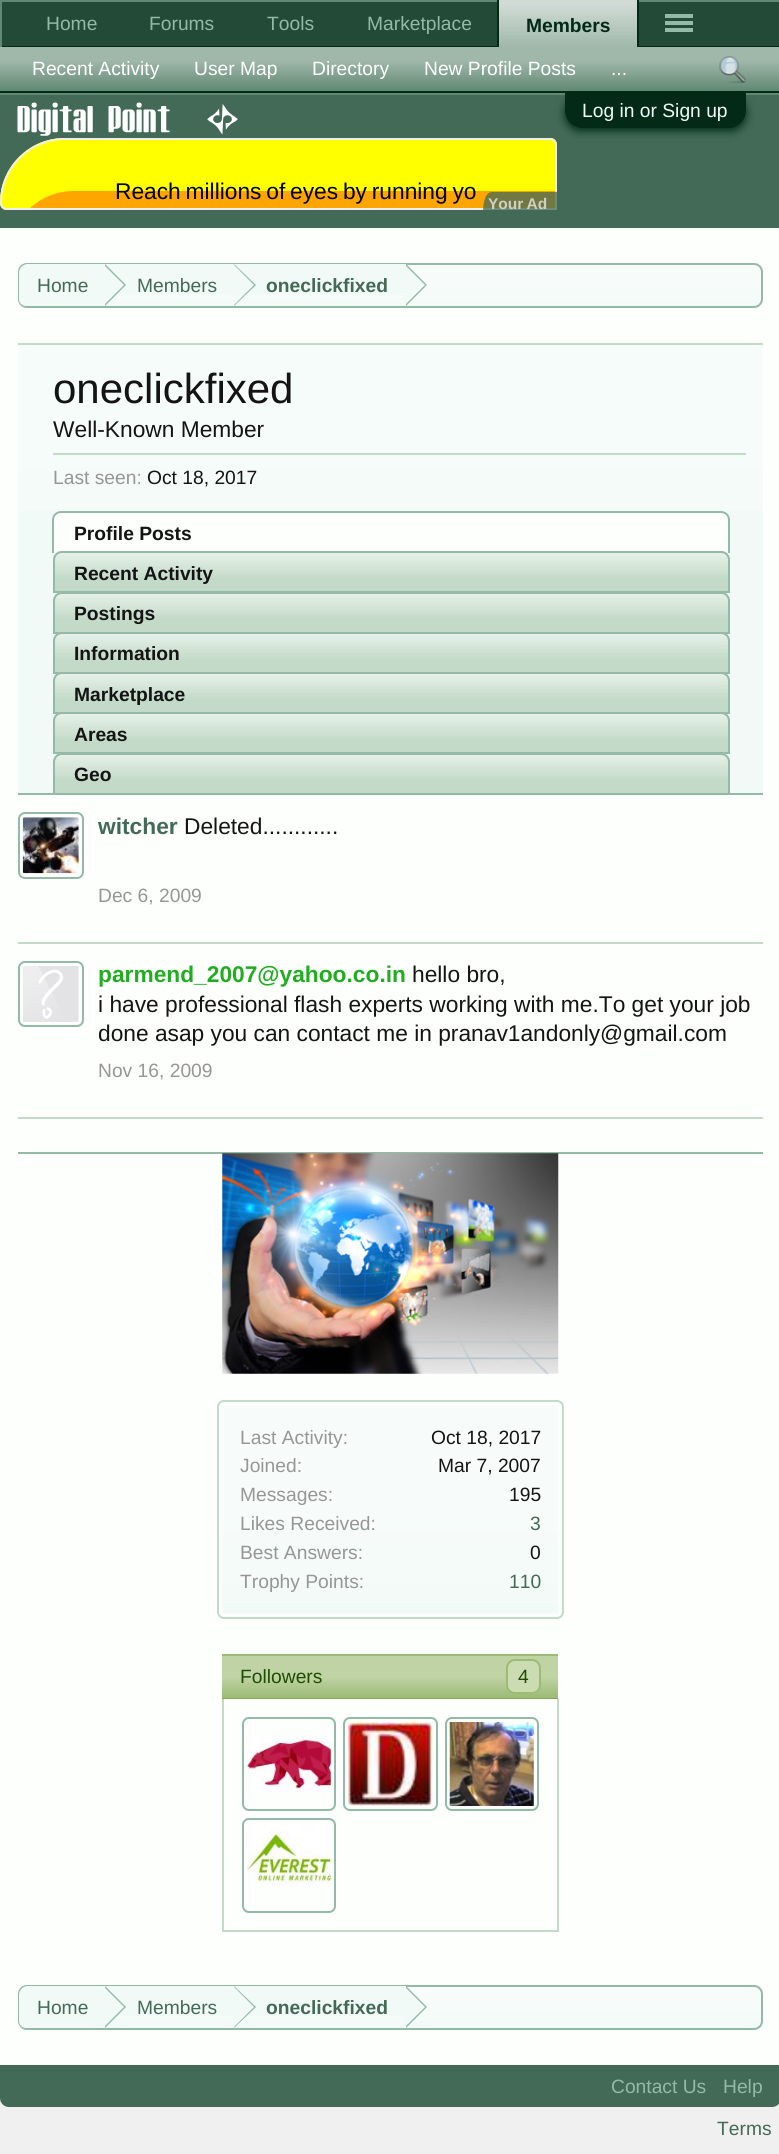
#include <cairo/cairo.h>
#include <math.h>
#include <stddef.h>

typedef struct { double x, y; const char *s; } line_t;
typedef struct { double x, y, w, h; unsigned color; } box_t;
static cairo_t *cr;

static void rgb(unsigned color)
{
	cairo_set_source_rgb(cr, (color >> 16) / 255.0, (color >> 8 & 255) / 255.0, (color & 255) / 255.0);
}

static void tracked(double x, double y, const char *s, double letter, double word)
{
	cairo_move_to(cr, x, y);
	while (*s) {
		char ch[5] = {0};
		int n = 0;
		do ch[n++] = *s++; while ((*s & 0xC0) == 0x80);
		cairo_show_text(cr, ch);
		cairo_rel_move_to(cr, letter + word * (*ch == ' '), 0);
	}
}

static void rrect(double x, double y, double w, double h, double r)
{
	cairo_new_sub_path(cr);
	cairo_arc(cr, x + w - r, y + h - r, r, 0, M_PI / 2);
	cairo_arc(cr, x + r, y + h - r, r, M_PI / 2, M_PI);
	cairo_arc(cr, x + r, y + r, r, M_PI, 1.5 * M_PI);
	cairo_arc(cr, x + w - r, y + r, r, 1.5 * M_PI, 2 * M_PI);
	cairo_close_path(cr);
}

static void soft_shadow(double x, double y, double w, double h, double r, double blur, double alpha)
{
	cairo_push_group_with_content(cr, CAIRO_CONTENT_ALPHA);
	cairo_set_operator(cr, CAIRO_OPERATOR_SOURCE);
	for (int i = 15; i >= -15 && fmin(w, h) + blur * i / 3 > 0; i -= 2) {
		double e = blur * i / 6;
		cairo_set_source_rgba(cr, 0, 0, 0, alpha * erfc((i - 1) / 8.5) / 2);
		rrect(x - e, y - e, w + 2 * e, h + 2 * e, fmax(0, fmin(r + e + blur * .6, fmin(w, h) / 2 + e)));
		cairo_fill(cr);
	}
	cairo_pattern_t *soft = cairo_pop_group(cr);
	cairo_mask(cr, soft);
	cairo_pattern_destroy(soft);
}

static void image(const char *path, double x, double y, double w, double h)
{
	cairo_surface_t *image = cairo_image_surface_create_from_png(path);
	cairo_save(cr);
	cairo_set_source_surface(cr, image, x, y);
	cairo_rectangle(cr, x, y, w, h);
	cairo_fill(cr);
	cairo_restore(cr);
	cairo_surface_destroy(image);
}

int main(void) {
	cairo_surface_t *surface = cairo_image_surface_create(CAIRO_FORMAT_RGB24, 779, 2154);
	cr = cairo_create(surface);
	cairo_font_options_t *options = cairo_font_options_create();
	cairo_font_options_set_hint_metrics(options, CAIRO_HINT_METRICS_OFF);
	cairo_font_options_set_hint_style(options, CAIRO_HINT_STYLE_NONE);
	cairo_set_font_options(cr, options);
	cairo_set_miter_limit(cr, 4);
	cairo_pattern_t *gradient;
	rgb(0xf0f0f0);
	cairo_paint(cr);
	{
		static const box_t items[] = {
			{2, 2, 777, 44, 0x224a37},
			{0, 0, 779, 2, 0x618872},
			{0, 46, 779, 1, 0x022a17},
			{0, 0, 2, 47, 0x618872},
			{665, 14, 28, 4, 0x92baa7},
			{665, 21, 28, 4, 0x92baa7},
			{665, 28, 28, 4, 0x92baa7},
		};
		for (size_t i = 0; i < sizeof items / sizeof *items; i++) {
			rgb(items[i].color);
			cairo_rectangle(cr, items[i].x, items[i].y, items[i].w, items[i].h);
			cairo_fill(cr);
		}
	}
	gradient = cairo_pattern_create_linear(568, 0, 568, 47);
	cairo_pattern_add_color_stop_rgba(gradient, 0, 0.816, 0.859, 0.835, 1);
	cairo_pattern_add_color_stop_rgba(gradient, 0.1, 0.816, 0.859, 0.835, 1);
	cairo_pattern_add_color_stop_rgba(gradient, 1, 0.627, 0.722, 0.667, 1);
	cairo_set_source(cr, gradient);
	cairo_pattern_destroy(gradient);
	cairo_rectangle(cr, 499, 0, 138, 47);
	cairo_fill(cr);
	{
		static const box_t items[] = {
			{637, 0, 2, 47, 0x022a17},
			{497, 0, 2, 47, 0x022a17},
			{0, 95, 779, 133, 0x426a57},
			{0, 91, 779, 2, 0x022a17},
			{0, 93, 779, 2, 0x618872},
		};
		for (size_t i = 0; i < sizeof items / sizeof *items; i++) {
			rgb(items[i].color);
			cairo_rectangle(cr, items[i].x, items[i].y, items[i].w, items[i].h);
			cairo_fill(cr);
		}
	}
	rgb(0x022a17);
	soft_shadow(565, 96, 181, 35, 17.5, 4.5, 1);
	gradient = cairo_pattern_create_linear(390, 47, 390, 91);
	cairo_pattern_add_color_stop_rgba(gradient, 0, 0.627, 0.722, 0.667, 1);
	cairo_pattern_add_color_stop_rgba(gradient, 0.3, 0.627, 0.722, 0.667, 1);
	cairo_pattern_add_color_stop_rgba(gradient, 1, 0.38, 0.533, 0.447, 1);
	cairo_set_source(cr, gradient);
	cairo_pattern_destroy(gradient);
	cairo_rectangle(cr, 0, 47, 779, 44);
	cairo_fill(cr);
	image("img/1.png", 719, 56, 27, 27);
	image("img/2.png", 17, 102, 221, 34);
	rgb(0xffa500);
	cairo_new_path(cr);
	cairo_move_to(cr, 65, 138);
	cairo_line_to(cr, 550, 138);
	cairo_curve_to(cr, 554, 138, 557, 141, 557, 145);
	cairo_line_to(cr, 557, 210);
	cairo_line_to(cr, 7, 210);
	cairo_curve_to(cr, 3, 210, 0, 207, 0, 203);
	cairo_curve_to(cr, 0, 167, 29, 138, 65, 138);
	cairo_close_path(cr);
	cairo_fill(cr);
	rgb(0xffff00);
	cairo_new_path(cr);
	cairo_move_to(cr, 74, 191);
	cairo_line_to(cr, 557, 191);
	cairo_line_to(cr, 557, 145);
	cairo_curve_to(cr, 557, 141, 554, 138, 550, 138);
	cairo_line_to(cr, 65, 138);
	cairo_curve_to(cr, 29, 138, 0, 167, 0, 203);
	cairo_curve_to(cr, 0, 207, 3, 210, 7, 210);
	cairo_line_to(cr, 28, 210);
	cairo_curve_to(cr, 40, 198, 56, 191, 74, 191);
	cairo_close_path(cr);
	cairo_fill(cr);
	cairo_new_path(cr);
	cairo_move_to(cr, 65, 139);
	cairo_line_to(cr, 550, 139);
	cairo_curve_to(cr, 553.5, 139, 556, 141.5, 556, 145);
	cairo_line_to(cr, 556, 209);
	cairo_line_to(cr, 7, 209);
	cairo_curve_to(cr, 3.5, 209, 1, 206.5, 1, 203);
	cairo_curve_to(cr, 1, 167.5, 29.5, 139, 65, 139);
	cairo_close_path(cr);
	rgb(0xeeeeee);
	cairo_stroke(cr);
	cairo_save(cr);
	cairo_rectangle(cr, 0, 138, 557, 88);
	cairo_clip(cr);
	cairo_set_source_rgba(cr, 0.259, 0.416, 0.341, 0.75);
	cairo_new_path(cr);
	cairo_move_to(cr, 492, 192);
	cairo_line_to(cr, 558, 192);
	cairo_line_to(cr, 558, 212);
	cairo_line_to(cr, 483, 212);
	cairo_curve_to(cr, 483, 207, 484, 192, 492, 192);
	cairo_close_path(cr);
	cairo_fill(cr);
	cairo_restore(cr);
	rgb(0xfcfffc);
	cairo_rectangle(cr, 0, 228, 779, 1837);
	cairo_fill(cr);
	rgb(0xf2faf7);
	rrect(18, 263, 745, 45, 9);
	cairo_fill(cr);
	cairo_save(cr);
	rrect(18, 263, 745, 45, 9);
	cairo_clip(cr);
	gradient = cairo_pattern_create_linear(390, 264, 390, 306);
	cairo_pattern_add_color_stop_rgba(gradient, 0, 1, 1, 1, 0.35);
	cairo_pattern_add_color_stop_rgba(gradient, 0.5, 1, 1, 1, 0.35);
	cairo_pattern_add_color_stop_rgba(gradient, 1, 1, 1, 1, 0);
	cairo_set_source(cr, gradient);
	cairo_pattern_destroy(gradient);
	cairo_rectangle(cr, 18, 264, 745, 41);
	cairo_fill(cr);
	cairo_restore(cr);
	rrect(19, 264, 743, 43, 8);
	rgb(0x92baa7);
	cairo_stroke(cr);
	cairo_save(cr);
	rrect(19, 264, 742, 42, 7);
	cairo_clip(cr);
	rgb(0xf2faf7);
	cairo_new_path(cr);
	cairo_move_to(cr, 28, 264);
	cairo_line_to(cr, 105, 264);
	cairo_line_to(cr, 105, 308);
	cairo_line_to(cr, 28, 308);
	cairo_curve_to(cr, 23, 308, 19, 304, 19, 299);
	cairo_line_to(cr, 19, 273);
	cairo_curve_to(cr, 19, 268, 23, 264, 28, 264);
	cairo_close_path(cr);
	cairo_fill(cr);
	cairo_restore(cr);
	rgb(0xf2faf7);
	cairo_rectangle(cr, 105, 264, 301, 30);
	cairo_fill(cr);
	rgb(0x92baa7);
	cairo_new_path(cr);
	cairo_move_to(cr, 105, 306);
	cairo_line_to(cr, 105, 264);
	cairo_line_to(cr, 126, 285);
	cairo_close_path(cr);
	cairo_fill(cr);
	rgb(0xf2faf7);
	cairo_new_path(cr);
	cairo_move_to(cr, 103, 306);
	cairo_line_to(cr, 103, 264);
	cairo_line_to(cr, 124, 285);
	cairo_close_path(cr);
	cairo_fill(cr);
	rgb(0x92baa7);
	cairo_new_path(cr);
	cairo_move_to(cr, 234, 306);
	cairo_line_to(cr, 234, 264);
	cairo_line_to(cr, 256, 285);
	cairo_close_path(cr);
	cairo_fill(cr);
	rgb(0xf2faf7);
	cairo_new_path(cr);
	cairo_move_to(cr, 233, 306);
	cairo_line_to(cr, 233, 264);
	cairo_line_to(cr, 254, 285);
	cairo_close_path(cr);
	cairo_fill(cr);
	rgb(0x92baa7);
	cairo_new_path(cr);
	cairo_move_to(cr, 406, 306);
	cairo_line_to(cr, 406, 264);
	cairo_line_to(cr, 427, 285);
	cairo_close_path(cr);
	cairo_fill(cr);
	rgb(0xf2faf7);
	cairo_new_path(cr);
	cairo_move_to(cr, 404, 306);
	cairo_line_to(cr, 404, 264);
	cairo_line_to(cr, 425, 285);
	cairo_close_path(cr);
	cairo_fill(cr);
	rgb(0x92baa7);
	cairo_rectangle(cr, 18, 1152, 745, 2);
	cairo_fill(cr);
	rgb(0xc2dac7);
	cairo_rectangle(cr, 18, 343, 745, 2);
	cairo_fill(cr);
	gradient = cairo_pattern_create_linear(390, 345, 390, 551);
	cairo_pattern_add_color_stop_rgba(gradient, 0, 0.965, 0.988, 0.98, 1);
	cairo_pattern_add_color_stop_rgba(gradient, 0.5, 0.965, 0.988, 0.98, 1);
	cairo_pattern_add_color_stop_rgba(gradient, 1, 0.949, 0.98, 0.973, 1);
	cairo_set_source(cr, gradient);
	cairo_pattern_destroy(gradient);
	cairo_rectangle(cr, 18, 345, 745, 166);
	cairo_fill(cr);
	{
		static const box_t items[] = {
			{53, 453, 693, 2, 0xc2dac7},
			{18, 511, 745, 282, 0xf2faf7},
			{18, 793, 745, 2, 0x92baa7},
		};
		for (size_t i = 0; i < sizeof items / sizeof *items; i++) {
			rgb(items[i].color);
			cairo_rectangle(cr, items[i].x, items[i].y, items[i].w, items[i].h);
			cairo_fill(cr);
		}
	}
	rgb(0xfcfffc);
	cairo_new_path(cr);
	cairo_move_to(cr, 62, 511);
	cairo_line_to(cr, 721, 511);
	cairo_curve_to(cr, 726, 511, 730, 515, 730, 520);
	cairo_line_to(cr, 730, 553);
	cairo_line_to(cr, 53, 553);
	cairo_line_to(cr, 53, 520);
	cairo_curve_to(cr, 53, 515, 57, 511, 62, 511);
	cairo_close_path(cr);
	cairo_fill(cr);
	rgb(0x92baa7);
	cairo_set_fill_rule(cr, CAIRO_FILL_RULE_EVEN_ODD);
	cairo_new_path(cr);
	cairo_move_to(cr, 61, 511);
	cairo_line_to(cr, 721, 511);
	cairo_curve_to(cr, 726, 511, 730, 515, 730, 520);
	cairo_line_to(cr, 730, 553);
	cairo_line_to(cr, 52, 553);
	cairo_line_to(cr, 52, 520);
	cairo_curve_to(cr, 52, 515, 56, 511, 61, 511);
	cairo_close_path(cr);
	cairo_move_to(cr, 61, 513);
	cairo_line_to(cr, 721, 513);
	cairo_curve_to(cr, 725, 513, 728, 516, 728, 520);
	cairo_line_to(cr, 728, 553);
	cairo_line_to(cr, 54, 553);
	cairo_line_to(cr, 54, 520);
	cairo_curve_to(cr, 54, 516, 57, 513, 61, 513);
	cairo_close_path(cr);
	cairo_fill(cr);
	rgb(0xc2dac7);
	cairo_new_path(cr);
	cairo_move_to(cr, 62, 551);
	cairo_line_to(cr, 721, 551);
	cairo_curve_to(cr, 726, 551, 730, 555, 730, 560);
	cairo_line_to(cr, 730, 593);
	cairo_line_to(cr, 53, 593);
	cairo_line_to(cr, 53, 560);
	cairo_curve_to(cr, 53, 555, 57, 551, 62, 551);
	cairo_close_path(cr);
	cairo_fill(cr);
	cairo_save(cr);
	cairo_set_fill_rule(cr, CAIRO_FILL_RULE_WINDING);
	cairo_new_path(cr);
	cairo_move_to(cr, 62, 551);
	cairo_line_to(cr, 721, 551);
	cairo_curve_to(cr, 726, 551, 730, 555, 730, 560);
	cairo_line_to(cr, 730, 593);
	cairo_line_to(cr, 53, 593);
	cairo_line_to(cr, 53, 560);
	cairo_curve_to(cr, 53, 555, 57, 551, 62, 551);
	cairo_close_path(cr);
	cairo_clip(cr);
	gradient = cairo_pattern_create_linear(391, 553, 391, 592);
	cairo_pattern_add_color_stop_rgba(gradient, 0, 1, 1, 1, 0.6);
	cairo_pattern_add_color_stop_rgba(gradient, 0.7, 1, 1, 1, 0);
	cairo_set_source(cr, gradient);
	cairo_pattern_destroy(gradient);
	cairo_rectangle(cr, 53, 553, 677, 26);
	cairo_fill(cr);
	cairo_restore(cr);
	cairo_new_path(cr);
	cairo_move_to(cr, 62, 552);
	cairo_line_to(cr, 721, 552);
	cairo_curve_to(cr, 725.5, 552, 729, 555.5, 729, 560);
	cairo_line_to(cr, 729, 592);
	cairo_line_to(cr, 54, 592);
	cairo_line_to(cr, 54, 560);
	cairo_curve_to(cr, 54, 555.5, 57.5, 552, 62, 552);
	cairo_close_path(cr);
	rgb(0x92baa7);
	cairo_stroke(cr);
	rgb(0xc2dac7);
	cairo_new_path(cr);
	cairo_move_to(cr, 62, 592);
	cairo_line_to(cr, 721, 592);
	cairo_curve_to(cr, 726, 592, 730, 596, 730, 601);
	cairo_line_to(cr, 730, 634);
	cairo_line_to(cr, 53, 634);
	cairo_line_to(cr, 53, 601);
	cairo_curve_to(cr, 53, 596, 57, 592, 62, 592);
	cairo_close_path(cr);
	cairo_fill(cr);
	cairo_save(cr);
	cairo_set_fill_rule(cr, CAIRO_FILL_RULE_WINDING);
	cairo_new_path(cr);
	cairo_move_to(cr, 62, 592);
	cairo_line_to(cr, 721, 592);
	cairo_curve_to(cr, 726, 592, 730, 596, 730, 601);
	cairo_line_to(cr, 730, 634);
	cairo_line_to(cr, 53, 634);
	cairo_line_to(cr, 53, 601);
	cairo_curve_to(cr, 53, 596, 57, 592, 62, 592);
	cairo_close_path(cr);
	cairo_clip(cr);
	gradient = cairo_pattern_create_linear(391, 593, 391, 632);
	cairo_pattern_add_color_stop_rgba(gradient, 0, 1, 1, 1, 0.6);
	cairo_pattern_add_color_stop_rgba(gradient, 0.7, 1, 1, 1, 0);
	cairo_set_source(cr, gradient);
	cairo_pattern_destroy(gradient);
	cairo_rectangle(cr, 53, 593, 677, 26);
	cairo_fill(cr);
	cairo_restore(cr);
	cairo_new_path(cr);
	cairo_move_to(cr, 62, 593);
	cairo_line_to(cr, 721, 593);
	cairo_curve_to(cr, 725.5, 593, 729, 596.5, 729, 601);
	cairo_line_to(cr, 729, 633);
	cairo_line_to(cr, 54, 633);
	cairo_line_to(cr, 54, 601);
	cairo_curve_to(cr, 54, 596.5, 57.5, 593, 62, 593);
	cairo_close_path(cr);
	rgb(0x92baa7);
	cairo_stroke(cr);
	rgb(0xc2dac7);
	cairo_new_path(cr);
	cairo_move_to(cr, 62, 632);
	cairo_line_to(cr, 721, 632);
	cairo_curve_to(cr, 726, 632, 730, 636, 730, 641);
	cairo_line_to(cr, 730, 674);
	cairo_line_to(cr, 53, 674);
	cairo_line_to(cr, 53, 641);
	cairo_curve_to(cr, 53, 636, 57, 632, 62, 632);
	cairo_close_path(cr);
	cairo_fill(cr);
	cairo_save(cr);
	cairo_set_fill_rule(cr, CAIRO_FILL_RULE_WINDING);
	cairo_new_path(cr);
	cairo_move_to(cr, 62, 632);
	cairo_line_to(cr, 721, 632);
	cairo_curve_to(cr, 726, 632, 730, 636, 730, 641);
	cairo_line_to(cr, 730, 674);
	cairo_line_to(cr, 53, 674);
	cairo_line_to(cr, 53, 641);
	cairo_curve_to(cr, 53, 636, 57, 632, 62, 632);
	cairo_close_path(cr);
	cairo_clip(cr);
	gradient = cairo_pattern_create_linear(391, 634, 391, 672);
	cairo_pattern_add_color_stop_rgba(gradient, 0, 1, 1, 1, 0.6);
	cairo_pattern_add_color_stop_rgba(gradient, 0.7, 1, 1, 1, 0);
	cairo_set_source(cr, gradient);
	cairo_pattern_destroy(gradient);
	cairo_rectangle(cr, 53, 634, 677, 26);
	cairo_fill(cr);
	cairo_restore(cr);
	cairo_new_path(cr);
	cairo_move_to(cr, 62, 633);
	cairo_line_to(cr, 721, 633);
	cairo_curve_to(cr, 725.5, 633, 729, 636.5, 729, 641);
	cairo_line_to(cr, 729, 673);
	cairo_line_to(cr, 54, 673);
	cairo_line_to(cr, 54, 641);
	cairo_curve_to(cr, 54, 636.5, 57.5, 633, 62, 633);
	cairo_close_path(cr);
	rgb(0x92baa7);
	cairo_stroke(cr);
	rgb(0xc2dac7);
	cairo_new_path(cr);
	cairo_move_to(cr, 62, 672);
	cairo_line_to(cr, 721, 672);
	cairo_curve_to(cr, 726, 672, 730, 676, 730, 681);
	cairo_line_to(cr, 730, 714);
	cairo_line_to(cr, 53, 714);
	cairo_line_to(cr, 53, 681);
	cairo_curve_to(cr, 53, 676, 57, 672, 62, 672);
	cairo_close_path(cr);
	cairo_fill(cr);
	cairo_save(cr);
	cairo_set_fill_rule(cr, CAIRO_FILL_RULE_WINDING);
	cairo_new_path(cr);
	cairo_move_to(cr, 62, 672);
	cairo_line_to(cr, 721, 672);
	cairo_curve_to(cr, 726, 672, 730, 676, 730, 681);
	cairo_line_to(cr, 730, 714);
	cairo_line_to(cr, 53, 714);
	cairo_line_to(cr, 53, 681);
	cairo_curve_to(cr, 53, 676, 57, 672, 62, 672);
	cairo_close_path(cr);
	cairo_clip(cr);
	gradient = cairo_pattern_create_linear(391, 674, 391, 712);
	cairo_pattern_add_color_stop_rgba(gradient, 0, 1, 1, 1, 0.6);
	cairo_pattern_add_color_stop_rgba(gradient, 0.7, 1, 1, 1, 0);
	cairo_set_source(cr, gradient);
	cairo_pattern_destroy(gradient);
	cairo_rectangle(cr, 53, 674, 677, 26);
	cairo_fill(cr);
	cairo_restore(cr);
	cairo_new_path(cr);
	cairo_move_to(cr, 62, 673);
	cairo_line_to(cr, 721, 673);
	cairo_curve_to(cr, 725.5, 673, 729, 676.5, 729, 681);
	cairo_line_to(cr, 729, 713);
	cairo_line_to(cr, 54, 713);
	cairo_line_to(cr, 54, 681);
	cairo_curve_to(cr, 54, 676.5, 57.5, 673, 62, 673);
	cairo_close_path(cr);
	rgb(0x92baa7);
	cairo_stroke(cr);
	rgb(0xc2dac7);
	cairo_new_path(cr);
	cairo_move_to(cr, 62, 712);
	cairo_line_to(cr, 721, 712);
	cairo_curve_to(cr, 726, 712, 730, 716, 730, 721);
	cairo_line_to(cr, 730, 754);
	cairo_line_to(cr, 53, 754);
	cairo_line_to(cr, 53, 721);
	cairo_curve_to(cr, 53, 716, 57, 712, 62, 712);
	cairo_close_path(cr);
	cairo_fill(cr);
	cairo_save(cr);
	cairo_set_fill_rule(cr, CAIRO_FILL_RULE_WINDING);
	cairo_new_path(cr);
	cairo_move_to(cr, 62, 712);
	cairo_line_to(cr, 721, 712);
	cairo_curve_to(cr, 726, 712, 730, 716, 730, 721);
	cairo_line_to(cr, 730, 754);
	cairo_line_to(cr, 53, 754);
	cairo_line_to(cr, 53, 721);
	cairo_curve_to(cr, 53, 716, 57, 712, 62, 712);
	cairo_close_path(cr);
	cairo_clip(cr);
	gradient = cairo_pattern_create_linear(391, 714, 391, 753);
	cairo_pattern_add_color_stop_rgba(gradient, 0, 1, 1, 1, 0.6);
	cairo_pattern_add_color_stop_rgba(gradient, 0.7, 1, 1, 1, 0);
	cairo_set_source(cr, gradient);
	cairo_pattern_destroy(gradient);
	cairo_rectangle(cr, 53, 714, 677, 26);
	cairo_fill(cr);
	cairo_restore(cr);
	cairo_new_path(cr);
	cairo_move_to(cr, 62, 713);
	cairo_line_to(cr, 721, 713);
	cairo_curve_to(cr, 725.5, 713, 729, 716.5, 729, 721);
	cairo_line_to(cr, 729, 753);
	cairo_line_to(cr, 54, 753);
	cairo_line_to(cr, 54, 721);
	cairo_curve_to(cr, 54, 716.5, 57.5, 713, 62, 713);
	cairo_close_path(cr);
	rgb(0x92baa7);
	cairo_stroke(cr);
	rgb(0xc2dac7);
	cairo_new_path(cr);
	cairo_move_to(cr, 62, 753);
	cairo_line_to(cr, 721, 753);
	cairo_curve_to(cr, 726, 753, 730, 757, 730, 762);
	cairo_line_to(cr, 730, 795);
	cairo_line_to(cr, 53, 795);
	cairo_line_to(cr, 53, 762);
	cairo_curve_to(cr, 53, 757, 57, 753, 62, 753);
	cairo_close_path(cr);
	cairo_fill(cr);
	cairo_save(cr);
	cairo_set_fill_rule(cr, CAIRO_FILL_RULE_WINDING);
	cairo_new_path(cr);
	cairo_move_to(cr, 62, 753);
	cairo_line_to(cr, 721, 753);
	cairo_curve_to(cr, 726, 753, 730, 757, 730, 762);
	cairo_line_to(cr, 730, 795);
	cairo_line_to(cr, 53, 795);
	cairo_line_to(cr, 53, 762);
	cairo_curve_to(cr, 53, 757, 57, 753, 62, 753);
	cairo_close_path(cr);
	cairo_clip(cr);
	gradient = cairo_pattern_create_linear(391, 754, 391, 793);
	cairo_pattern_add_color_stop_rgba(gradient, 0, 1, 1, 1, 0.6);
	cairo_pattern_add_color_stop_rgba(gradient, 0.7, 1, 1, 1, 0);
	cairo_set_source(cr, gradient);
	cairo_pattern_destroy(gradient);
	cairo_rectangle(cr, 53, 754, 677, 26);
	cairo_fill(cr);
	cairo_restore(cr);
	cairo_new_path(cr);
	cairo_move_to(cr, 62, 754);
	cairo_line_to(cr, 721, 754);
	cairo_curve_to(cr, 725.5, 754, 729, 757.5, 729, 762);
	cairo_line_to(cr, 729, 794);
	cairo_line_to(cr, 54, 794);
	cairo_line_to(cr, 54, 762);
	cairo_curve_to(cr, 54, 757.5, 57.5, 754, 62, 754);
	cairo_close_path(cr);
	rgb(0x92baa7);
	cairo_stroke(cr);
	rgb(0xc2dac7);
	cairo_rectangle(cr, 18, 942, 745, 2);
	cairo_fill(cr);
	rrect(19, 813, 64, 65, 6);
	rgb(0x92baa7);
	cairo_stroke(cr);
	image("img/3.png", 22, 817, 57, 57);
	rgb(0xc2dac7);
	cairo_rectangle(cr, 18, 1117, 745, 2);
	cairo_fill(cr);
	rrect(19, 962, 64, 64, 6);
	rgb(0x92baa7);
	cairo_stroke(cr);
	image("img/4.png", 23, 966, 56, 56);
	image("img/5.png", 222, 1153, 337, 221);
	rrect(218, 1401, 345, 217, 6);
	rgb(0xc2dac7);
	cairo_stroke(cr);
	gradient = cairo_pattern_create_linear(390, 1405, 390, 1614);
	cairo_pattern_add_color_stop_rgba(gradient, 0, 0.969, 0.988, 0.98, 1);
	cairo_pattern_add_color_stop_rgba(gradient, 0.5, 0.969, 0.988, 0.98, 1);
	cairo_pattern_add_color_stop_rgba(gradient, 1, 0.949, 0.98, 0.969, 1);
	cairo_set_source(cr, gradient);
	cairo_pattern_destroy(gradient);
	cairo_rectangle(cr, 222, 1405, 336, 209);
	cairo_fill(cr);
	gradient = cairo_pattern_create_linear(390, 1656, 390, 1698);
	cairo_pattern_add_color_stop_rgba(gradient, 0, 0.749, 0.827, 0.647, 1);
	cairo_pattern_add_color_stop_rgba(gradient, 0.5, 0.749, 0.827, 0.647, 1);
	cairo_pattern_add_color_stop_rgba(gradient, 1, 0.612, 0.733, 0.455, 1);
	cairo_set_source(cr, gradient);
	cairo_pattern_destroy(gradient);
	cairo_rectangle(cr, 222, 1656, 336, 42);
	cairo_fill(cr);
	rgb(0x9cbb74);
	cairo_rectangle(cr, 222, 1654, 336, 2);
	cairo_fill(cr);
	rgb(0x85ab52);
	cairo_rectangle(cr, 222, 1698, 336, 1);
	cairo_fill(cr);
	rgb(0xcbdcb3);
	rrect(507, 1660, 33, 33, 8);
	cairo_fill_preserve(cr);
	rgb(0x9cbb74);
	cairo_stroke(cr);
	{
		static const box_t items[] = {
			{557, 1699, 2, 233, 0xc2dac7},
			{222, 1930, 336, 2, 0xc2dac7},
			{222, 1699, 2, 233, 0xc2dac7},
		};
		for (size_t i = 0; i < sizeof items / sizeof *items; i++) {
			rgb(items[i].color);
			cairo_rectangle(cr, items[i].x, items[i].y, items[i].w, items[i].h);
			cairo_fill(cr);
		}
	}
	image("img/6.png", 247, 1736, 84, 56);
	rrect(243, 1718, 92, 92, 6);
	rgb(0x92baa7);
	cairo_stroke(cr);
	image("img/7.png", 348, 1722, 85, 84);
	rrect(344, 1718, 93, 92, 6);
	cairo_stroke(cr);
	image("img/8.png", 449, 1722, 85, 84);
	rrect(446, 1718, 92, 92, 6);
	cairo_stroke(cr);
	image("img/9.png", 246, 1824, 85, 63);
	rrect(243, 1819, 92, 93, 6);
	cairo_stroke(cr);
	rgb(0xf2faf7);
	rrect(18, 1985, 745, 45, 9);
	cairo_fill(cr);
	cairo_save(cr);
	cairo_set_fill_rule(cr, CAIRO_FILL_RULE_WINDING);
	rrect(18, 1985, 745, 45, 9);
	cairo_clip(cr);
	gradient = cairo_pattern_create_linear(390, 1986, 390, 2028);
	cairo_pattern_add_color_stop_rgba(gradient, 0, 1, 1, 1, 0.35);
	cairo_pattern_add_color_stop_rgba(gradient, 0.5, 1, 1, 1, 0.35);
	cairo_pattern_add_color_stop_rgba(gradient, 1, 1, 1, 1, 0);
	cairo_set_source(cr, gradient);
	cairo_pattern_destroy(gradient);
	cairo_rectangle(cr, 18, 1986, 745, 41);
	cairo_fill(cr);
	cairo_restore(cr);
	rrect(19, 1986, 743, 43, 8);
	rgb(0x92baa7);
	cairo_stroke(cr);
	cairo_save(cr);
	cairo_set_fill_rule(cr, CAIRO_FILL_RULE_WINDING);
	rrect(19, 1986, 742, 42, 7);
	cairo_clip(cr);
	rgb(0xf2faf7);
	cairo_new_path(cr);
	cairo_move_to(cr, 28, 1986);
	cairo_line_to(cr, 105, 1986);
	cairo_line_to(cr, 105, 2030);
	cairo_line_to(cr, 28, 2030);
	cairo_curve_to(cr, 23, 2030, 19, 2026, 19, 2021);
	cairo_line_to(cr, 19, 1995);
	cairo_curve_to(cr, 19, 1990, 23, 1986, 28, 1986);
	cairo_close_path(cr);
	cairo_fill(cr);
	cairo_restore(cr);
	rgb(0xf2faf7);
	cairo_rectangle(cr, 105, 1986, 301, 30);
	cairo_fill(cr);
	rgb(0x92baa7);
	cairo_set_fill_rule(cr, CAIRO_FILL_RULE_WINDING);
	cairo_new_path(cr);
	cairo_move_to(cr, 105, 2028);
	cairo_line_to(cr, 105, 1986);
	cairo_line_to(cr, 126, 2007);
	cairo_close_path(cr);
	cairo_fill(cr);
	rgb(0xf2faf7);
	cairo_new_path(cr);
	cairo_move_to(cr, 103, 2028);
	cairo_line_to(cr, 103, 1986);
	cairo_line_to(cr, 124, 2007);
	cairo_close_path(cr);
	cairo_fill(cr);
	rgb(0x92baa7);
	cairo_new_path(cr);
	cairo_move_to(cr, 234, 2028);
	cairo_line_to(cr, 234, 1986);
	cairo_line_to(cr, 256, 2007);
	cairo_close_path(cr);
	cairo_fill(cr);
	rgb(0xf2faf7);
	cairo_new_path(cr);
	cairo_move_to(cr, 233, 2028);
	cairo_line_to(cr, 233, 1986);
	cairo_line_to(cr, 254, 2007);
	cairo_close_path(cr);
	cairo_fill(cr);
	rgb(0x92baa7);
	cairo_new_path(cr);
	cairo_move_to(cr, 406, 2028);
	cairo_line_to(cr, 406, 1986);
	cairo_line_to(cr, 427, 2007);
	cairo_close_path(cr);
	cairo_fill(cr);
	rgb(0xf2faf7);
	cairo_new_path(cr);
	cairo_move_to(cr, 404, 2028);
	cairo_line_to(cr, 404, 1986);
	cairo_line_to(cr, 425, 2007);
	cairo_close_path(cr);
	cairo_fill(cr);
	rgb(0x022a17);
	cairo_new_path(cr);
	cairo_move_to(cr, 565, 93);
	cairo_line_to(cr, 746, 93);
	cairo_line_to(cr, 746, 110.5);
	cairo_curve_to(cr, 746, 120, 738, 128, 728.5, 128);
	cairo_line_to(cr, 582.5, 128);
	cairo_curve_to(cr, 573, 128, 565, 120, 565, 110.5);
	cairo_close_path(cr);
	cairo_fill(cr);
	rgb(0x426a57);
	cairo_new_path(cr);
	cairo_move_to(cr, 0, 2065);
	cairo_line_to(cr, 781, 2065);
	cairo_line_to(cr, 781, 2098);
	cairo_curve_to(cr, 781, 2103, 777, 2107, 772, 2107);
	cairo_line_to(cr, 9, 2107);
	cairo_curve_to(cr, 4, 2107, 0, 2103, 0, 2098);
	cairo_close_path(cr);
	cairo_fill(cr);
	cairo_select_font_face(cr, "Liberation Sans", CAIRO_FONT_SLANT_NORMAL, CAIRO_FONT_WEIGHT_NORMAL);
	cairo_set_font_size(cr, 19.25);
	rgb(0x92baa7);
	{
		static const line_t items[] = {
			{46, 30, "Home"},
			{149, 30, "Forums"},
			{267, 30, "Tools"},
			{367, 30, "Marketplace"},
		};
		for (size_t i = 0; i < sizeof items / sizeof *items; i++) {
			cairo_move_to(cr, items[i].x, items[i].y);
			cairo_show_text(cr, items[i].s);
		}
	}
	cairo_select_font_face(cr, "Liberation Sans", CAIRO_FONT_SLANT_NORMAL, CAIRO_FONT_WEIGHT_BOLD);
	rgb(0x022a17);
	cairo_move_to(cr, 526, 32);
	cairo_show_text(cr, "Members");
	cairo_select_font_face(cr, "Liberation Sans", CAIRO_FONT_SLANT_NORMAL, CAIRO_FONT_WEIGHT_NORMAL);
	rgb(0xffffff);
	{
		static const line_t items[] = {
			{32, 75, "Recent Activity"},
			{194, 75, "User Map"},
			{312, 75, "Directory"},
			{424, 75, "New Profile Posts"},
			{611, 75, "..."},
		};
		for (size_t i = 0; i < sizeof items / sizeof *items; i++) {
			cairo_move_to(cr, items[i].x, items[i].y);
			cairo_show_text(cr, items[i].s);
		}
	}
	cairo_set_font_size(cr, 22.75);
	rgb(0x000000);
	tracked(115, 199, "Reach millions of eyes by running yo", 0, -1.5);
	cairo_select_font_face(cr, "Liberation Sans", CAIRO_FONT_SLANT_NORMAL, CAIRO_FONT_WEIGHT_BOLD);
	cairo_set_font_size(cr, 15.5);
	rgb(0xcfd1c5);
	tracked(488, 209, "Your Ad", 0, -1);
	cairo_select_font_face(cr, "Liberation Sans", CAIRO_FONT_SLANT_NORMAL, CAIRO_FONT_WEIGHT_NORMAL);
	cairo_set_font_size(cr, 19.25);
	rgb(0x426a57);
	cairo_move_to(cr, 37, 292);
	cairo_show_text(cr, "Home");
	cairo_move_to(cr, 137, 292);
	cairo_show_text(cr, "Members");
	cairo_select_font_face(cr, "Liberation Sans", CAIRO_FONT_SLANT_NORMAL, CAIRO_FONT_WEIGHT_BOLD);
	cairo_move_to(cr, 266, 292);
	cairo_show_text(cr, "oneclickfixed");
	cairo_select_font_face(cr, "Liberation Sans", CAIRO_FONT_SLANT_NORMAL, CAIRO_FONT_WEIGHT_NORMAL);
	cairo_set_font_size(cr, 42);
	rgb(0x141414);
	cairo_move_to(cr, 53, 403);
	cairo_show_text(cr, "oneclickfixed");
	cairo_set_font_size(cr, 22.75);
	cairo_move_to(cr, 53, 437);
	cairo_show_text(cr, "Well-Known Member");
	cairo_set_font_size(cr, 19.25);
	rgb(0x969696);
	cairo_move_to(cr, 53, 484);
	cairo_show_text(cr, "Last seen:");
	rgb(0x141414);
	cairo_move_to(cr, 147, 484);
	cairo_show_text(cr, "Oct 18, 2017");
	cairo_select_font_face(cr, "Liberation Sans", CAIRO_FONT_SLANT_NORMAL, CAIRO_FONT_WEIGHT_BOLD);
	{
		static const line_t items[] = {
			{74, 540, "Profile Posts"},
			{74, 580, "Recent Activity"},
			{74, 620, "Postings"},
			{74, 660, "Information"},
			{74, 701, "Marketplace"},
			{74, 741, "Areas"},
			{74, 781, "Geo"},
		};
		for (size_t i = 0; i < sizeof items / sizeof *items; i++) {
			cairo_move_to(cr, items[i].x, items[i].y);
			cairo_show_text(cr, items[i].s);
		}
	}
	cairo_set_font_size(cr, 22.75);
	rgb(0x426a57);
	cairo_move_to(cr, 98, 834);
	cairo_show_text(cr, "witcher");
	cairo_select_font_face(cr, "Liberation Sans", CAIRO_FONT_SLANT_NORMAL, CAIRO_FONT_WEIGHT_NORMAL);
	rgb(0x141414);
	cairo_move_to(cr, 184, 834);
	cairo_show_text(cr, "Deleted............");
	cairo_set_font_size(cr, 19.25);
	rgb(0x969696);
	cairo_move_to(cr, 98, 902);
	cairo_show_text(cr, "Dec 6, 2009");
	cairo_select_font_face(cr, "Liberation Sans", CAIRO_FONT_SLANT_NORMAL, CAIRO_FONT_WEIGHT_BOLD);
	cairo_set_font_size(cr, 22.75);
	rgb(0x22ac22);
	cairo_move_to(cr, 98, 982);
	cairo_show_text(cr, "parmend_2007@yahoo.co.in");
	cairo_select_font_face(cr, "Liberation Sans", CAIRO_FONT_SLANT_NORMAL, CAIRO_FONT_WEIGHT_NORMAL);
	rgb(0x141414);
	{
		static const line_t items[] = {
			{412, 982, "hello bro,"},
			{98, 1012, "i have professional flash experts working with me.To get your job"},
			{98, 1041, "done asap you can contact me in pranav1andonly@gmail.com"},
		};
		for (size_t i = 0; i < sizeof items / sizeof *items; i++) {
			cairo_move_to(cr, items[i].x, items[i].y);
			cairo_show_text(cr, items[i].s);
		}
	}
	cairo_set_font_size(cr, 19.25);
	rgb(0x969696);
	cairo_move_to(cr, 98, 1077);
	cairo_show_text(cr, "Nov 16, 2009");
	cairo_move_to(cr, 240, 1444);
	cairo_show_text(cr, "Last Activity:");
	rgb(0x141414);
	cairo_move_to(cr, 431, 1444);
	cairo_show_text(cr, "Oct 18, 2017");
	rgb(0x969696);
	cairo_move_to(cr, 240, 1472);
	cairo_show_text(cr, "Joined:");
	rgb(0x141414);
	cairo_move_to(cr, 438, 1472);
	cairo_show_text(cr, "Mar 7, 2007");
	rgb(0x969696);
	cairo_move_to(cr, 240, 1501);
	cairo_show_text(cr, "Messages:");
	rgb(0x141414);
	cairo_move_to(cr, 509, 1501);
	cairo_show_text(cr, "195");
	rgb(0x969696);
	cairo_move_to(cr, 240, 1530);
	cairo_show_text(cr, "Likes Received:");
	rgb(0x426a57);
	cairo_move_to(cr, 530, 1530);
	cairo_show_text(cr, "3");
	rgb(0x969696);
	cairo_move_to(cr, 240, 1559);
	cairo_show_text(cr, "Best Answers:");
	rgb(0x141414);
	cairo_move_to(cr, 530, 1559);
	cairo_show_text(cr, "0");
	rgb(0x969696);
	cairo_move_to(cr, 240, 1588);
	cairo_show_text(cr, "Trophy Points:");
	rgb(0x426a57);
	cairo_move_to(cr, 509, 1588);
	cairo_show_text(cr, "110");
	rgb(0x1f4d00);
	cairo_move_to(cr, 240, 1683);
	cairo_show_text(cr, "Followers");
	cairo_move_to(cr, 518, 1683);
	cairo_show_text(cr, "4");
	rgb(0x426a57);
	cairo_move_to(cr, 37, 2014);
	cairo_show_text(cr, "Home");
	cairo_move_to(cr, 137, 2014);
	cairo_show_text(cr, "Members");
	cairo_select_font_face(cr, "Liberation Sans", CAIRO_FONT_SLANT_NORMAL, CAIRO_FONT_WEIGHT_BOLD);
	cairo_move_to(cr, 266, 2014);
	cairo_show_text(cr, "oneclickfixed");
	cairo_select_font_face(cr, "Liberation Sans", CAIRO_FONT_SLANT_NORMAL, CAIRO_FONT_WEIGHT_NORMAL);
	rgb(0xf2faf7);
	cairo_move_to(cr, 582, 117);
	cairo_show_text(cr, "Log in or Sign up");
	rgb(0x92baa7);
	cairo_move_to(cr, 611, 2093);
	cairo_show_text(cr, "Contact Us");
	cairo_move_to(cr, 723, 2093);
	cairo_show_text(cr, "Help");
	rgb(0x426a57);
	cairo_move_to(cr, 717, 2135);
	cairo_show_text(cr, "Terms");
	cairo_surface_write_to_png(surface, "page.png");
	cairo_font_options_destroy(options);
	cairo_destroy(cr);
	cairo_surface_destroy(surface);
	return 0;
}
